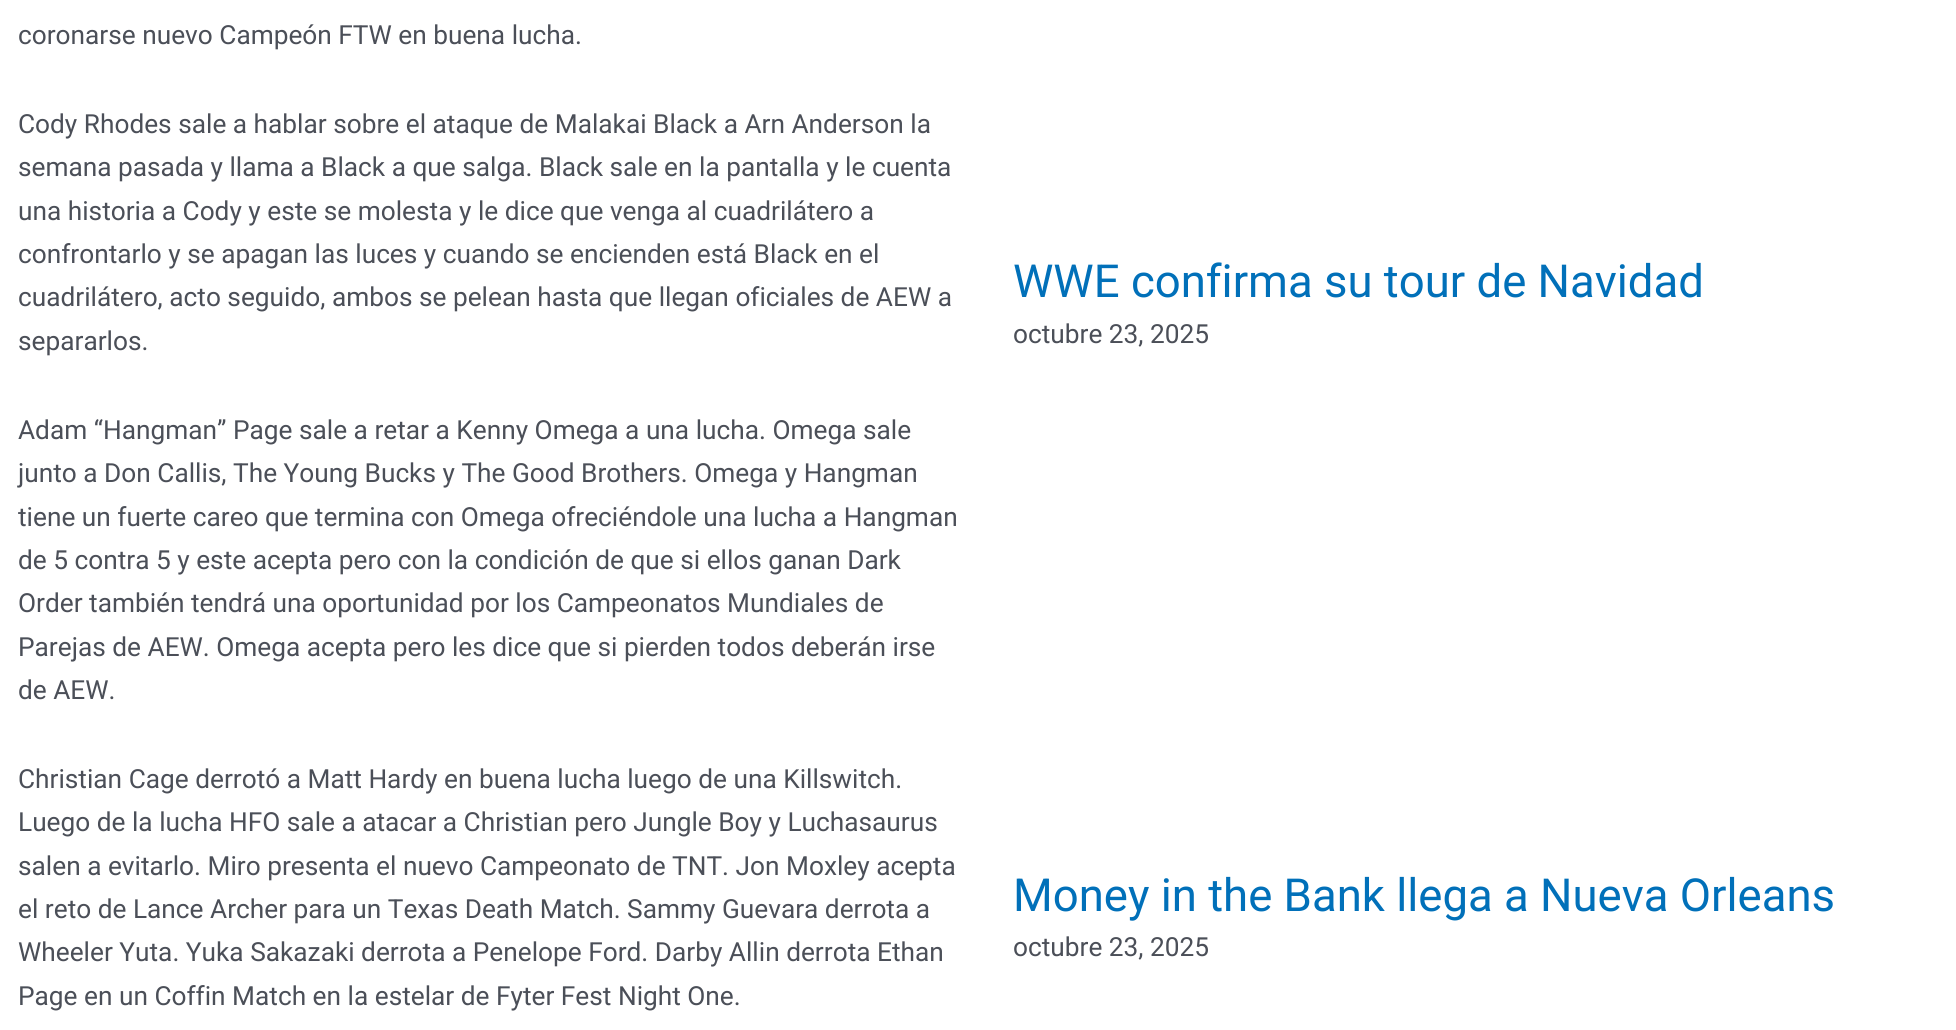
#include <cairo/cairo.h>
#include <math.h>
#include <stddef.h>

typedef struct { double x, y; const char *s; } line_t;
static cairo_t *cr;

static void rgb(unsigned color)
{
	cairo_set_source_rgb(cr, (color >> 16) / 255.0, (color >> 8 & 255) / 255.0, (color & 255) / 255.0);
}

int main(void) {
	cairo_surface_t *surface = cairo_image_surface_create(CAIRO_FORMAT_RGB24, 1956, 1030);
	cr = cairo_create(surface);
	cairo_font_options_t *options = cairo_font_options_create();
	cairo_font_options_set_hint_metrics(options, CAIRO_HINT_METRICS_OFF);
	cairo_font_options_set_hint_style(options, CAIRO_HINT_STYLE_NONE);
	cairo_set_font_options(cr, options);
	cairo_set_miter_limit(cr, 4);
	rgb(0xffffff);
	cairo_paint(cr);
	cairo_select_font_face(cr, "Roboto", CAIRO_FONT_SLANT_NORMAL, CAIRO_FONT_WEIGHT_NORMAL);
	cairo_set_font_size(cr, 26.25);
	rgb(0x4b4f58);
	{
		static const line_t items[] = {
			{18, 44, "coronarse nuevo Campeón FTW en buena lucha."},
			{18, 133, "Cody Rhodes sale a hablar sobre el ataque de Malakai Black a Arn Anderson la"},
			{18, 176, "semana pasada y llama a Black a que salga. Black sale en la pantalla y le cuenta"},
			{18, 220, "una historia a Cody y este se molesta y le dice que venga al cuadrilátero a"},
			{18, 263, "confrontarlo y se apagan las luces y cuando se encienden está Black en el"},
			{18, 306, "cuadrilátero, acto seguido, ambos se pelean hasta que llegan oficiales de AEW a"},
			{18, 350, "separarlos."},
			{18, 439, "Adam “Hangman” Page sale a retar a Kenny Omega a una lucha. Omega sale"},
			{18, 482, "junto a Don Callis, The Young Bucks y The Good Brothers. Omega y Hangman"},
			{18, 526, "tiene un fuerte careo que termina con Omega ofreciéndole una lucha a Hangman"},
			{18, 569, "de 5 contra 5 y este acepta pero con la condición de que si ellos ganan Dark"},
			{18, 612, "Order también tendrá una oportunidad por los Campeonatos Mundiales de"},
			{18, 656, "Parejas de AEW. Omega acepta pero les dice que si pierden todos deberán irse"},
			{18, 699, "de AEW."},
			{18, 788, "Christian Cage derrotó a Matt Hardy en buena lucha luego de una Killswitch."},
			{18, 831, "Luego de la lucha HFO sale a atacar a Christian pero Jungle Boy y Luchasaurus"},
			{18, 875, "salen a evitarlo. Miro presenta el nuevo Campeonato de TNT. Jon Moxley acepta"},
			{18, 918, "el reto de Lance Archer para un Texas Death Match. Sammy Guevara derrota a"},
			{18, 961, "Wheeler Yuta. Yuka Sakazaki derrota a Penelope Ford. Darby Allin derrota Ethan"},
			{18, 1005, "Page en un Coffin Match en la estelar de Fyter Fest Night One."},
		};
		for (size_t i = 0; i < sizeof items / sizeof *items; i++) {
			cairo_move_to(cr, items[i].x, items[i].y);
			cairo_show_text(cr, items[i].s);
		}
	}
	cairo_set_font_size(cr, 45.5);
	rgb(0x0170b9);
	cairo_move_to(cr, 1013, 297);
	cairo_show_text(cr, "WWE confirma su tour de Navidad");
	cairo_set_font_size(cr, 26.25);
	rgb(0x4b4f58);
	cairo_move_to(cr, 1013, 343);
	cairo_show_text(cr, "octubre 23, 2025");
	cairo_set_font_size(cr, 45.5);
	rgb(0x0170b9);
	cairo_move_to(cr, 1013, 911);
	cairo_show_text(cr, "Money in the Bank llega a Nueva Orleans");
	cairo_set_font_size(cr, 26.25);
	rgb(0x4b4f58);
	cairo_move_to(cr, 1013, 956);
	cairo_show_text(cr, "octubre 23, 2025");
	cairo_surface_write_to_png(surface, "page.png");
	cairo_font_options_destroy(options);
	cairo_destroy(cr);
	cairo_surface_destroy(surface);
	return 0;
}
